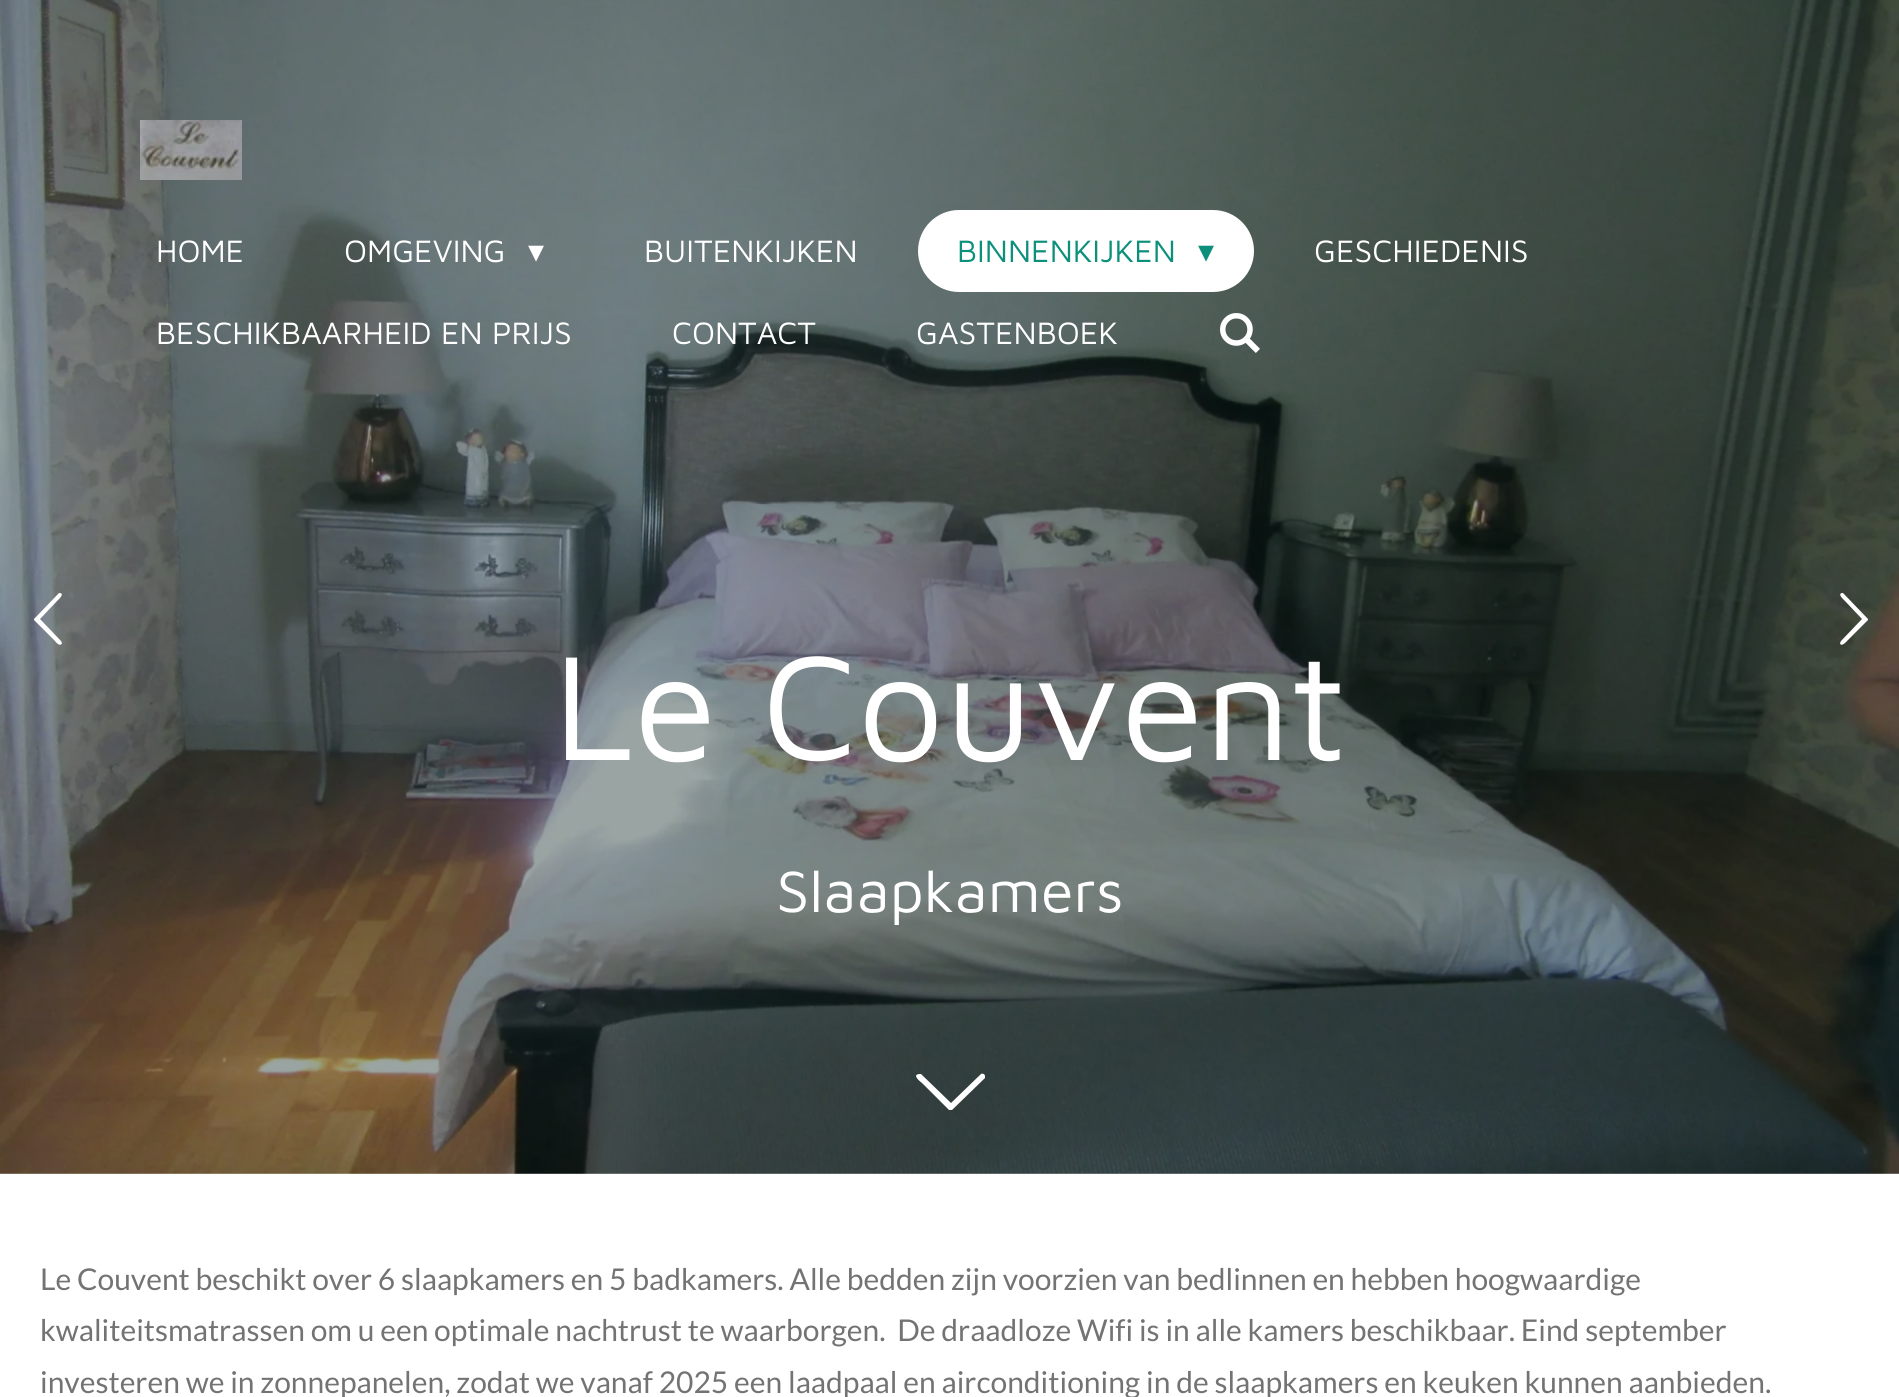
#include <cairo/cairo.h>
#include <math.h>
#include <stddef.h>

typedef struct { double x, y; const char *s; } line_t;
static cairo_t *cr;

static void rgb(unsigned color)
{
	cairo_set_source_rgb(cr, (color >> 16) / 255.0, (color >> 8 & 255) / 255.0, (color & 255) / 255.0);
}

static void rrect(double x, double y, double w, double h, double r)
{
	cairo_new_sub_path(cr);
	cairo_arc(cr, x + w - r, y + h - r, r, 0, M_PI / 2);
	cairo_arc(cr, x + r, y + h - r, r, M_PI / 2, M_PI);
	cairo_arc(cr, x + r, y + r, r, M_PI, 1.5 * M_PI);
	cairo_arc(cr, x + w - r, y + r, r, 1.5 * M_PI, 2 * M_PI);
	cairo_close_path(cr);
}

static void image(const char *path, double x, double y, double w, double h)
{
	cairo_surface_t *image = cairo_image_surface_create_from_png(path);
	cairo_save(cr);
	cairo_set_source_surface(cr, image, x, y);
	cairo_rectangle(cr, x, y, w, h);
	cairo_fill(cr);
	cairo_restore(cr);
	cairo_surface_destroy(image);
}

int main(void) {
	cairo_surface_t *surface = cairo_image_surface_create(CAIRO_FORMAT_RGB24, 1899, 1397);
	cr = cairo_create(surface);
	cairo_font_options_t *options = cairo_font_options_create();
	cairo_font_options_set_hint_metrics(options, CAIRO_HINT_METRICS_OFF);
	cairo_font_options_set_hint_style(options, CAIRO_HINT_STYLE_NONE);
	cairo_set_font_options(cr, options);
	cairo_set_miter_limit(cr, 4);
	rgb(0xffffff);
	cairo_paint(cr);
	image("img/3.png", 0, 0, 1899, 1174);
	image("img/1.png", 140, 120, 102, 60);
	rgb(0xffffff);
	rrect(918, 210, 336, 82, 41);
	cairo_fill(cr);
	image("img/2.png", 1220, 313, 40, 40);
	cairo_new_path(cr);
	cairo_move_to(cr, 61, 641);
	cairo_line_to(cr, 62, 643);
	cairo_curve_to(cr, 60, 648, 55, 641, 54, 640);
	cairo_line_to(cr, 34, 620);
	cairo_line_to(cr, 34, 619);
	cairo_line_to(cr, 59, 593);
	cairo_line_to(cr, 60, 593);
	cairo_curve_to(cr, 65, 594, 58, 600, 58, 600);
	cairo_line_to(cr, 40, 619);
	cairo_close_path(cr);
	cairo_fill(cr);
	cairo_new_path(cr);
	cairo_move_to(cr, 1841, 641);
	cairo_line_to(cr, 1862, 619);
	cairo_line_to(cr, 1844, 600);
	cairo_curve_to(cr, 1844, 600, 1837, 594, 1842, 593);
	cairo_line_to(cr, 1843, 593);
	cairo_line_to(cr, 1868, 619);
	cairo_line_to(cr, 1868, 620);
	cairo_line_to(cr, 1848, 640);
	cairo_curve_to(cr, 1847, 641, 1841, 648, 1840, 643);
	cairo_close_path(cr);
	cairo_fill(cr);
	cairo_new_path(cr);
	cairo_move_to(cr, 921, 1074);
	cairo_line_to(cr, 951, 1103);
	cairo_line_to(cr, 981, 1074);
	cairo_curve_to(cr, 982, 1073, 985, 1074, 985, 1076);
	cairo_line_to(cr, 985, 1078);
	cairo_line_to(cr, 952, 1110);
	cairo_line_to(cr, 949, 1110);
	cairo_line_to(cr, 922, 1083);
	cairo_curve_to(cr, 922, 1083, 911, 1075, 919, 1074);
	cairo_close_path(cr);
	cairo_fill(cr);
	cairo_select_font_face(cr, "Maven Pro", CAIRO_FONT_SLANT_NORMAL, CAIRO_FONT_WEIGHT_NORMAL);
	cairo_set_font_size(cr, 32);
	cairo_move_to(cr, 156, 262);
	cairo_show_text(cr, "HOME");
	cairo_move_to(cr, 344, 262);
	cairo_show_text(cr, "OMGEVING");
	cairo_select_font_face(cr, "DejaVu Sans", CAIRO_FONT_SLANT_NORMAL, CAIRO_FONT_WEIGHT_NORMAL);
	cairo_move_to(cr, 528, 262);
	cairo_show_text(cr, "▾");
	cairo_select_font_face(cr, "Maven Pro", CAIRO_FONT_SLANT_NORMAL, CAIRO_FONT_WEIGHT_NORMAL);
	cairo_move_to(cr, 644, 262);
	cairo_show_text(cr, "BUITENKIJKEN");
	rgb(0x0d907b);
	cairo_move_to(cr, 957, 262);
	cairo_show_text(cr, "BINNENKIJKEN");
	cairo_select_font_face(cr, "DejaVu Sans", CAIRO_FONT_SLANT_NORMAL, CAIRO_FONT_WEIGHT_NORMAL);
	cairo_move_to(cr, 1198, 262);
	cairo_show_text(cr, "▾");
	cairo_select_font_face(cr, "Maven Pro", CAIRO_FONT_SLANT_NORMAL, CAIRO_FONT_WEIGHT_NORMAL);
	rgb(0xffffff);
	{
		static const line_t items[] = {
			{1314, 262, "GESCHIEDENIS"},
			{156, 344, "BESCHIKBAARHEID EN PRIJS"},
			{672, 344, "CONTACT"},
			{916, 344, "GASTENBOEK"},
		};
		for (size_t i = 0; i < sizeof items / sizeof *items; i++) {
			cairo_move_to(cr, items[i].x, items[i].y);
			cairo_show_text(cr, items[i].s);
		}
	}
	cairo_set_font_size(cr, 153.5);
	cairo_move_to(cr, 553, 760);
	cairo_show_text(cr, "Le Couvent");
	cairo_set_font_size(cr, 60);
	cairo_move_to(cr, 776, 912);
	cairo_show_text(cr, "Slaapkamers");
	cairo_select_font_face(cr, "Lato", CAIRO_FONT_SLANT_NORMAL, CAIRO_FONT_WEIGHT_NORMAL);
	cairo_set_font_size(cr, 30);
	rgb(0x737373);
	{
		static const line_t items[] = {
			{40, 1290, "Le Couvent beschikt over 6 slaapkamers en 5 badkamers. Alle bedden zijn voorzien van bedlinnen en hebben hoogwaardige"},
			{40, 1341, "kwaliteitsmatrassen om u een optimale nachtrust te waarborgen.  De draadloze Wifi is in alle kamers beschikbaar. Eind september"},
			{40, 1393, "investeren we in zonnepanelen, zodat we vanaf 2025 een laadpaal en airconditioning in de slaapkamers en keuken kunnen aanbieden."},
		};
		for (size_t i = 0; i < sizeof items / sizeof *items; i++) {
			cairo_move_to(cr, items[i].x, items[i].y);
			cairo_show_text(cr, items[i].s);
		}
	}
	cairo_surface_write_to_png(surface, "page.png");
	cairo_font_options_destroy(options);
	cairo_destroy(cr);
	cairo_surface_destroy(surface);
	return 0;
}
